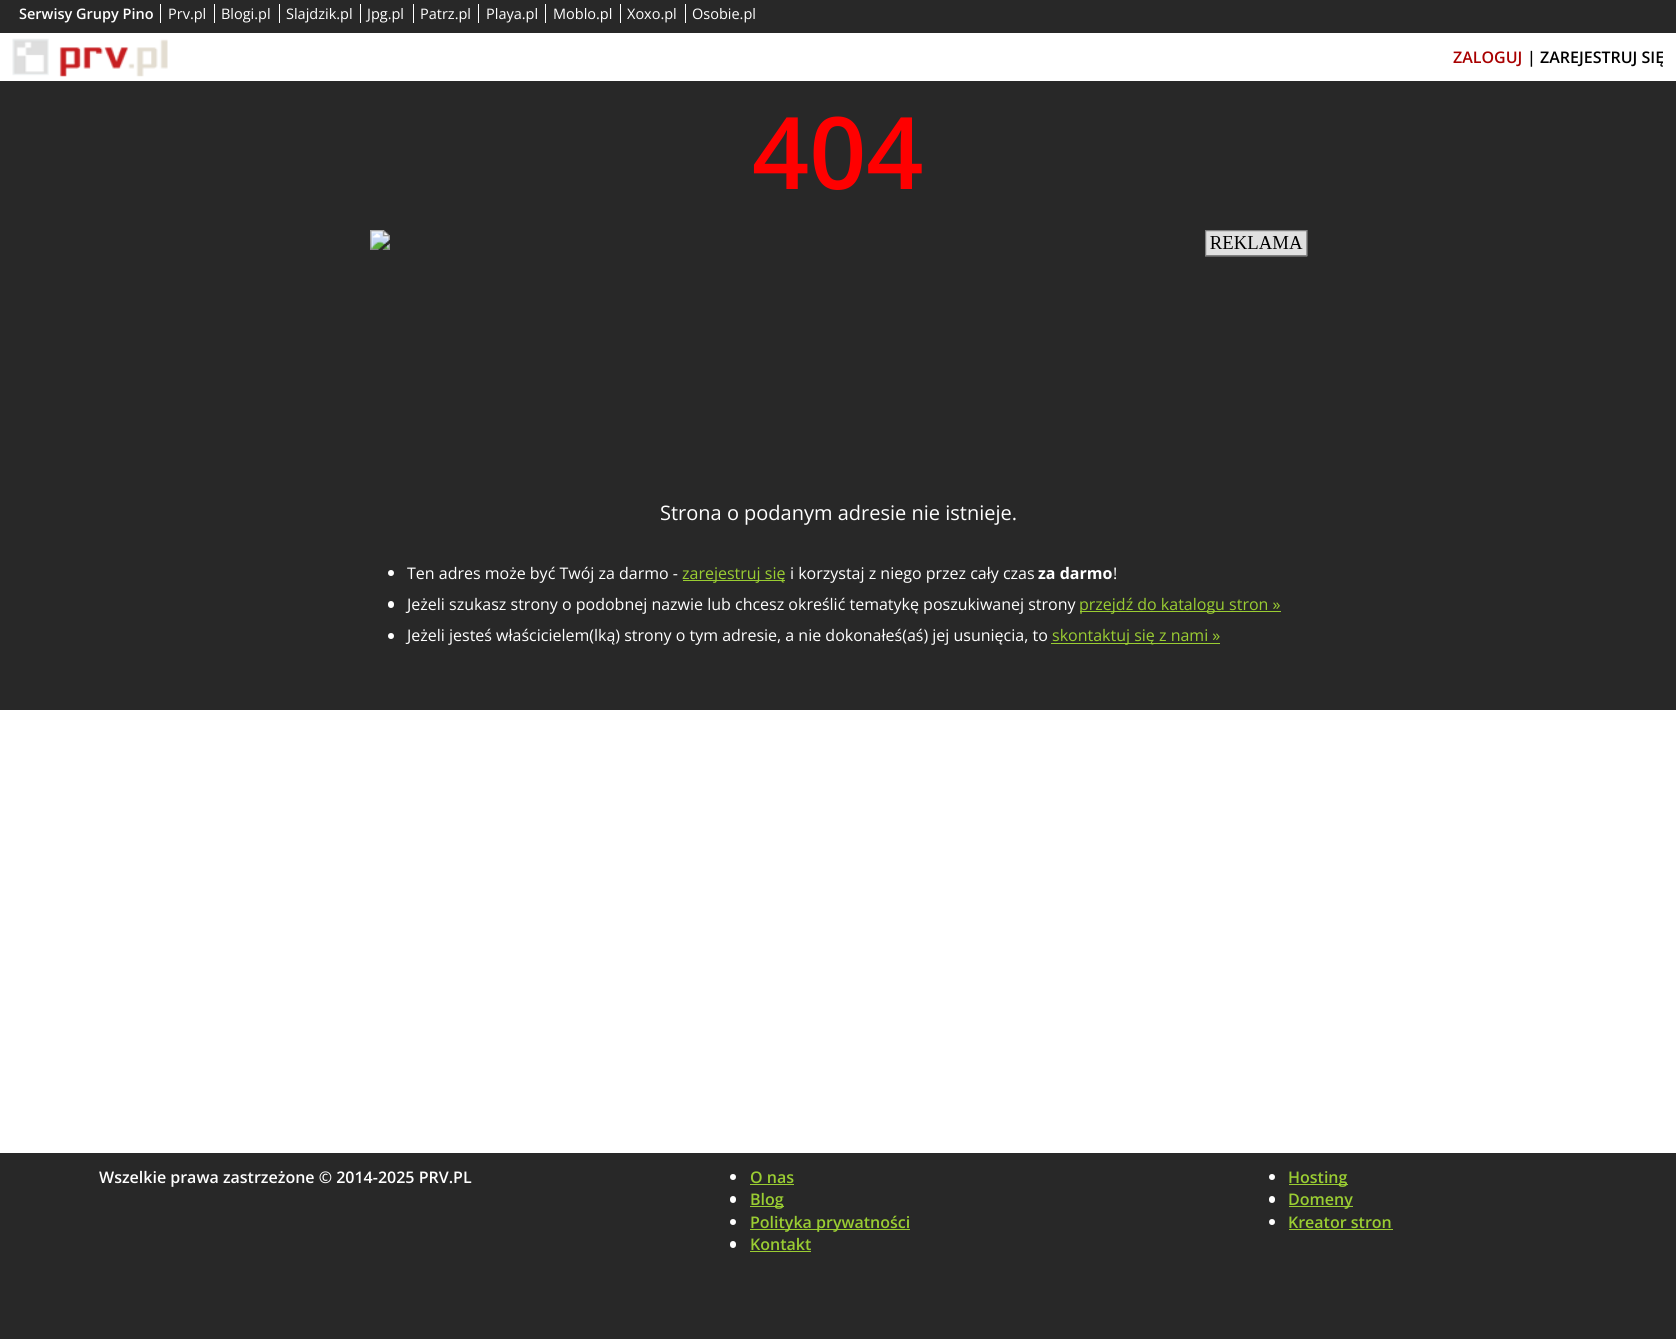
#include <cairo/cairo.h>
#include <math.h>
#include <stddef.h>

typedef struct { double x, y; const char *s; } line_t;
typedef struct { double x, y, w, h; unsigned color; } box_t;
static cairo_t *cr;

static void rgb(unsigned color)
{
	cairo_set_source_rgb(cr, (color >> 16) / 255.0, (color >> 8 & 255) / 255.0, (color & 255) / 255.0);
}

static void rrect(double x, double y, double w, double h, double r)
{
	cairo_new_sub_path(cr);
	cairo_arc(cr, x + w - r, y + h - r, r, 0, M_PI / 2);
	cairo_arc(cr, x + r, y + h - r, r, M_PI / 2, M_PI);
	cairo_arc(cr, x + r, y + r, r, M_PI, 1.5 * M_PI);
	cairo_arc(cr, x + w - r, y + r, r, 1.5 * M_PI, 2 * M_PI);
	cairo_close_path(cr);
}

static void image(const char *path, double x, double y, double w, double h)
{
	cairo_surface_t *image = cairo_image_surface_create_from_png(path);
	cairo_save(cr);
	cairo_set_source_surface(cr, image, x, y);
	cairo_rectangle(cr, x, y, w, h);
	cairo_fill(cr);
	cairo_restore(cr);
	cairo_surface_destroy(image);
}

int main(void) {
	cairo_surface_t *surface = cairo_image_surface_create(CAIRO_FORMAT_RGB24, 1676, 1339);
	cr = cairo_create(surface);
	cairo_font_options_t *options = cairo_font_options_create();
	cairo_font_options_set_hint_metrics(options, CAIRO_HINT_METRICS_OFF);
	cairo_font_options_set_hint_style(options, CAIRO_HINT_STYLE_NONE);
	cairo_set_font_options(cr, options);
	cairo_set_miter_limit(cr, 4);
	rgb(0xffffff);
	cairo_paint(cr);
	{
		static const box_t items[] = {
			{0, 0, 1676, 33, 0x282828},
			{160, 4, 1, 19, 0xffffff},
			{214, 4, 1, 19, 0xffffff},
			{279, 4, 1, 19, 0xffffff},
			{360, 4, 1, 19, 0xffffff},
			{413, 4, 1, 19, 0xffffff},
			{478, 4, 1, 19, 0xffffff},
			{545, 4, 1, 19, 0xffffff},
			{620, 4, 1, 19, 0xffffff},
			{685, 4, 1, 19, 0xffffff},
		};
		for (size_t i = 0; i < sizeof items / sizeof *items; i++) {
			rgb(items[i].color);
			cairo_rectangle(cr, items[i].x, items[i].y, items[i].w, items[i].h);
			cairo_fill(cr);
		}
	}
	image("img/1.png", 12, 38, 156, 39);
	rgb(0x282828);
	cairo_rectangle(cr, 0, 81, 1676, 629);
	cairo_fill(cr);
	image("img/2.png", 370, 230, 938, 27);
	rgb(0xffffff);
	cairo_arc(cr, 391, 573, 3, 0, 2 * M_PI);
	cairo_fill(cr);
	rgb(0x9acd32);
	cairo_rectangle(cr, 683, 580, 102, 1);
	cairo_fill(cr);
	rgb(0xffffff);
	rrect(388, 601, 6, 7, 3);
	cairo_fill(cr);
	rgb(0x9acd32);
	cairo_rectangle(cr, 1080, 611, 201, 1);
	cairo_fill(cr);
	rgb(0xffffff);
	cairo_arc(cr, 391, 636, 3, 0, 2 * M_PI);
	cairo_fill(cr);
	rgb(0x9acd32);
	cairo_rectangle(cr, 1051, 643, 169, 1);
	cairo_fill(cr);
	rgb(0x282828);
	cairo_rectangle(cr, 0, 1153, 1676, 186);
	cairo_fill(cr);
	rgb(0xffffff);
	cairo_arc(cr, 733, 1177, 3, 0, 2 * M_PI);
	cairo_fill(cr);
	rgb(0x9acd32);
	cairo_rectangle(cr, 750, 1184, 44, 1);
	cairo_fill(cr);
	rgb(0xffffff);
	rrect(730, 1196, 6, 7, 3);
	cairo_fill(cr);
	rgb(0x9acd32);
	cairo_rectangle(cr, 750, 1206, 34, 1);
	cairo_fill(cr);
	rgb(0xffffff);
	cairo_arc(cr, 733, 1222, 3, 0, 2 * M_PI);
	cairo_fill(cr);
	rgb(0x9acd32);
	cairo_rectangle(cr, 750, 1229, 160, 1);
	cairo_fill(cr);
	rgb(0xffffff);
	rrect(730, 1241, 6, 7, 3);
	cairo_fill(cr);
	rgb(0x9acd32);
	cairo_rectangle(cr, 750, 1251, 61, 1);
	cairo_fill(cr);
	rgb(0xffffff);
	cairo_arc(cr, 1272, 1177, 3, 0, 2 * M_PI);
	cairo_fill(cr);
	rgb(0x9acd32);
	cairo_rectangle(cr, 1289, 1184, 59, 1);
	cairo_fill(cr);
	rgb(0xffffff);
	rrect(1269, 1196, 6, 7, 3);
	cairo_fill(cr);
	rgb(0x9acd32);
	cairo_rectangle(cr, 1289, 1206, 64, 1);
	cairo_fill(cr);
	rgb(0xffffff);
	cairo_arc(cr, 1272, 1222, 3, 0, 2 * M_PI);
	cairo_fill(cr);
	rgb(0x9acd32);
	cairo_rectangle(cr, 1289, 1229, 104, 1);
	cairo_fill(cr);
	cairo_select_font_face(cr, "Open Sans SemiBold", CAIRO_FONT_SLANT_NORMAL, CAIRO_FONT_WEIGHT_NORMAL);
	cairo_set_font_size(cr, 14.5);
	rgb(0xffffff);
	cairo_move_to(cr, 19, 19);
	cairo_show_text(cr, "Serwisy Grupy Pino");
	cairo_select_font_face(cr, "Open Sans", CAIRO_FONT_SLANT_NORMAL, CAIRO_FONT_WEIGHT_NORMAL);
	{
		static const line_t items[] = {
			{168, 19, "Prv.pl"},
			{221, 19, "Blogi.pl"},
			{286, 19, "Slajdzik.pl"},
			{367, 19, "Jpg.pl"},
			{420, 19, "Patrz.pl"},
			{486, 19, "Playa.pl"},
			{553, 19, "Moblo.pl"},
			{627, 19, "Xoxo.pl"},
			{692, 19, "Osobie.pl"},
		};
		for (size_t i = 0; i < sizeof items / sizeof *items; i++) {
			cairo_move_to(cr, items[i].x, items[i].y);
			cairo_show_text(cr, items[i].s);
		}
	}
	cairo_select_font_face(cr, "Open Sans SemiBold", CAIRO_FONT_SLANT_NORMAL, CAIRO_FONT_WEIGHT_NORMAL);
	cairo_set_font_size(cr, 16);
	rgb(0xa80000);
	cairo_move_to(cr, 1453, 63);
	cairo_show_text(cr, "ZALOGUJ");
	rgb(0x000000);
	cairo_move_to(cr, 1527, 63);
	cairo_show_text(cr, "| ZAREJESTRUJ SIĘ");
	cairo_set_font_size(cr, 100);
	rgb(0xff0000);
	cairo_move_to(cr, 752, 189);
	cairo_show_text(cr, "404");
	cairo_select_font_face(cr, "Open Sans", CAIRO_FONT_SLANT_NORMAL, CAIRO_FONT_WEIGHT_NORMAL);
	cairo_set_font_size(cr, 20);
	rgb(0xffffff);
	cairo_move_to(cr, 660, 520);
	cairo_show_text(cr, "Strona o podanym adresie nie istnieje.");
	cairo_set_font_size(cr, 16);
	cairo_move_to(cr, 407, 579);
	cairo_show_text(cr, "Ten adres może być Twój za darmo -");
	rgb(0x9acd32);
	cairo_move_to(cr, 682, 579);
	cairo_show_text(cr, "zarejestruj się");
	rgb(0xffffff);
	cairo_move_to(cr, 790, 579);
	cairo_show_text(cr, "i korzystaj z niego przez cały czas");
	cairo_select_font_face(cr, "Open Sans", CAIRO_FONT_SLANT_NORMAL, CAIRO_FONT_WEIGHT_BOLD);
	cairo_move_to(cr, 1038, 579);
	cairo_show_text(cr, "za darmo");
	cairo_select_font_face(cr, "Open Sans", CAIRO_FONT_SLANT_NORMAL, CAIRO_FONT_WEIGHT_NORMAL);
	cairo_move_to(cr, 1113, 579);
	cairo_show_text(cr, "!");
	cairo_move_to(cr, 407, 610);
	cairo_show_text(cr, "Jeżeli szukasz strony o podobnej nazwie lub chcesz określić tematykę poszukiwanej strony");
	rgb(0x9acd32);
	cairo_move_to(cr, 1079, 610);
	cairo_show_text(cr, "przejdź do katalogu stron »");
	rgb(0xffffff);
	cairo_move_to(cr, 407, 641);
	cairo_show_text(cr, "Jeżeli jesteś właścicielem(lką) strony o tym adresie, a nie dokonałeś(aś) jej usunięcia, to");
	rgb(0x9acd32);
	cairo_move_to(cr, 1052, 641);
	cairo_show_text(cr, "skontaktuj się z nami »");
	cairo_select_font_face(cr, "Open Sans SemiBold", CAIRO_FONT_SLANT_NORMAL, CAIRO_FONT_WEIGHT_NORMAL);
	rgb(0xffffff);
	cairo_move_to(cr, 99, 1183);
	cairo_show_text(cr, "Wszelkie prawa zastrzeżone © 2014-2025 PRV.PL");
	rgb(0x9acd32);
	{
		static const line_t items[] = {
			{750, 1183, "O nas"},
			{750, 1205, "Blog"},
			{750, 1228, "Polityka prywatności"},
			{750, 1250, "Kontakt"},
			{1288, 1183, "Hosting"},
			{1288, 1205, "Domeny"},
			{1288, 1228, "Kreator stron"},
		};
		for (size_t i = 0; i < sizeof items / sizeof *items; i++) {
			cairo_move_to(cr, items[i].x, items[i].y);
			cairo_show_text(cr, items[i].s);
		}
	}
	cairo_surface_write_to_png(surface, "page.png");
	cairo_font_options_destroy(options);
	cairo_destroy(cr);
	cairo_surface_destroy(surface);
	return 0;
}
